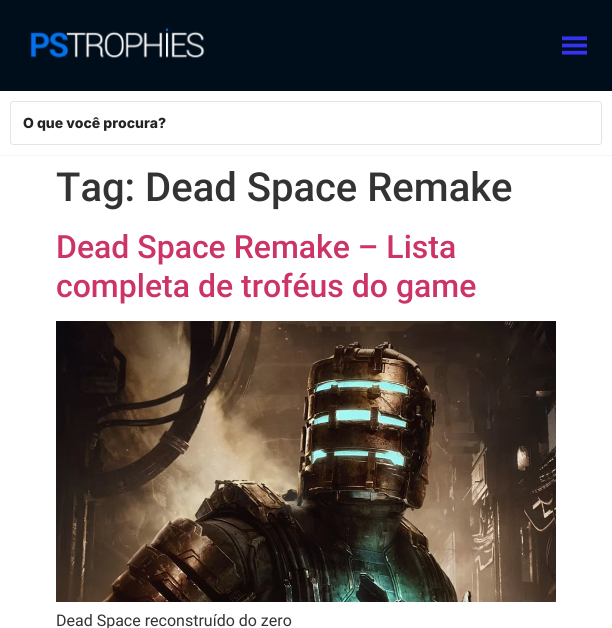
#include <cairo/cairo.h>
#include <math.h>
#include <stddef.h>

static cairo_t *cr;

static void rgb(unsigned color)
{
	cairo_set_source_rgb(cr, (color >> 16) / 255.0, (color >> 8 & 255) / 255.0, (color & 255) / 255.0);
}

static void rrect(double x, double y, double w, double h, double r)
{
	cairo_new_sub_path(cr);
	cairo_arc(cr, x + w - r, y + h - r, r, 0, M_PI / 2);
	cairo_arc(cr, x + r, y + h - r, r, M_PI / 2, M_PI);
	cairo_arc(cr, x + r, y + r, r, M_PI, 1.5 * M_PI);
	cairo_arc(cr, x + w - r, y + r, r, 1.5 * M_PI, 2 * M_PI);
	cairo_close_path(cr);
}

static void image(const char *path, double x, double y, double w, double h)
{
	cairo_surface_t *image = cairo_image_surface_create_from_png(path);
	cairo_save(cr);
	cairo_set_source_surface(cr, image, x, y);
	cairo_rectangle(cr, x, y, w, h);
	cairo_fill(cr);
	cairo_restore(cr);
	cairo_surface_destroy(image);
}

int main(void) {
	cairo_surface_t *surface = cairo_image_surface_create(CAIRO_FORMAT_RGB24, 612, 628);
	cr = cairo_create(surface);
	cairo_font_options_t *options = cairo_font_options_create();
	cairo_font_options_set_hint_metrics(options, CAIRO_HINT_METRICS_OFF);
	cairo_font_options_set_hint_style(options, CAIRO_HINT_STYLE_NONE);
	cairo_set_font_options(cr, options);
	cairo_set_miter_limit(cr, 4);
	rgb(0xffffff);
	cairo_paint(cr);
	rgb(0x000d1b);
	cairo_rectangle(cr, 0, 0, 612, 91);
	cairo_fill(cr);
	image("img/1.png", 30, 27, 175, 31);
	image("img/2.png", 562, 36, 25, 19);
	rgb(0xf4f4f4);
	cairo_rectangle(cr, 0, 155, 612, 1);
	cairo_fill(cr);
	rrect(10.5, 101.5, 591, 43, 2.5);
	rgb(0xe1e5eb);
	cairo_set_line_width(cr, 1);
	cairo_stroke(cr);
	image("img/3.png", 56, 321, 500, 281);
	cairo_select_font_face(cr, "Inter ExtraBold", CAIRO_FONT_SLANT_NORMAL, CAIRO_FONT_WEIGHT_NORMAL);
	cairo_set_font_size(cr, 14);
	rgb(0x232323);
	cairo_move_to(cr, 23, 128);
	cairo_show_text(cr, "O que você procura?");
	cairo_select_font_face(cr, "Roboto Medium", CAIRO_FONT_SLANT_NORMAL, CAIRO_FONT_WEIGHT_NORMAL);
	cairo_set_font_size(cr, 40);
	rgb(0x333333);
	cairo_move_to(cr, 56, 201);
	cairo_show_text(cr, "Tag: Dead Space Remake");
	cairo_set_font_size(cr, 32);
	rgb(0xcc3366);
	cairo_move_to(cr, 56, 258);
	cairo_show_text(cr, "Dead Space Remake – Lista");
	cairo_move_to(cr, 56, 297);
	cairo_show_text(cr, "completa de troféus do game");
	cairo_select_font_face(cr, "Roboto", CAIRO_FONT_SLANT_NORMAL, CAIRO_FONT_WEIGHT_NORMAL);
	cairo_set_font_size(cr, 16);
	rgb(0x333333);
	cairo_move_to(cr, 56, 626);
	cairo_show_text(cr, "Dead Space reconstruído do zero");
	cairo_surface_write_to_png(surface, "page.png");
	cairo_font_options_destroy(options);
	cairo_destroy(cr);
	cairo_surface_destroy(surface);
	return 0;
}
